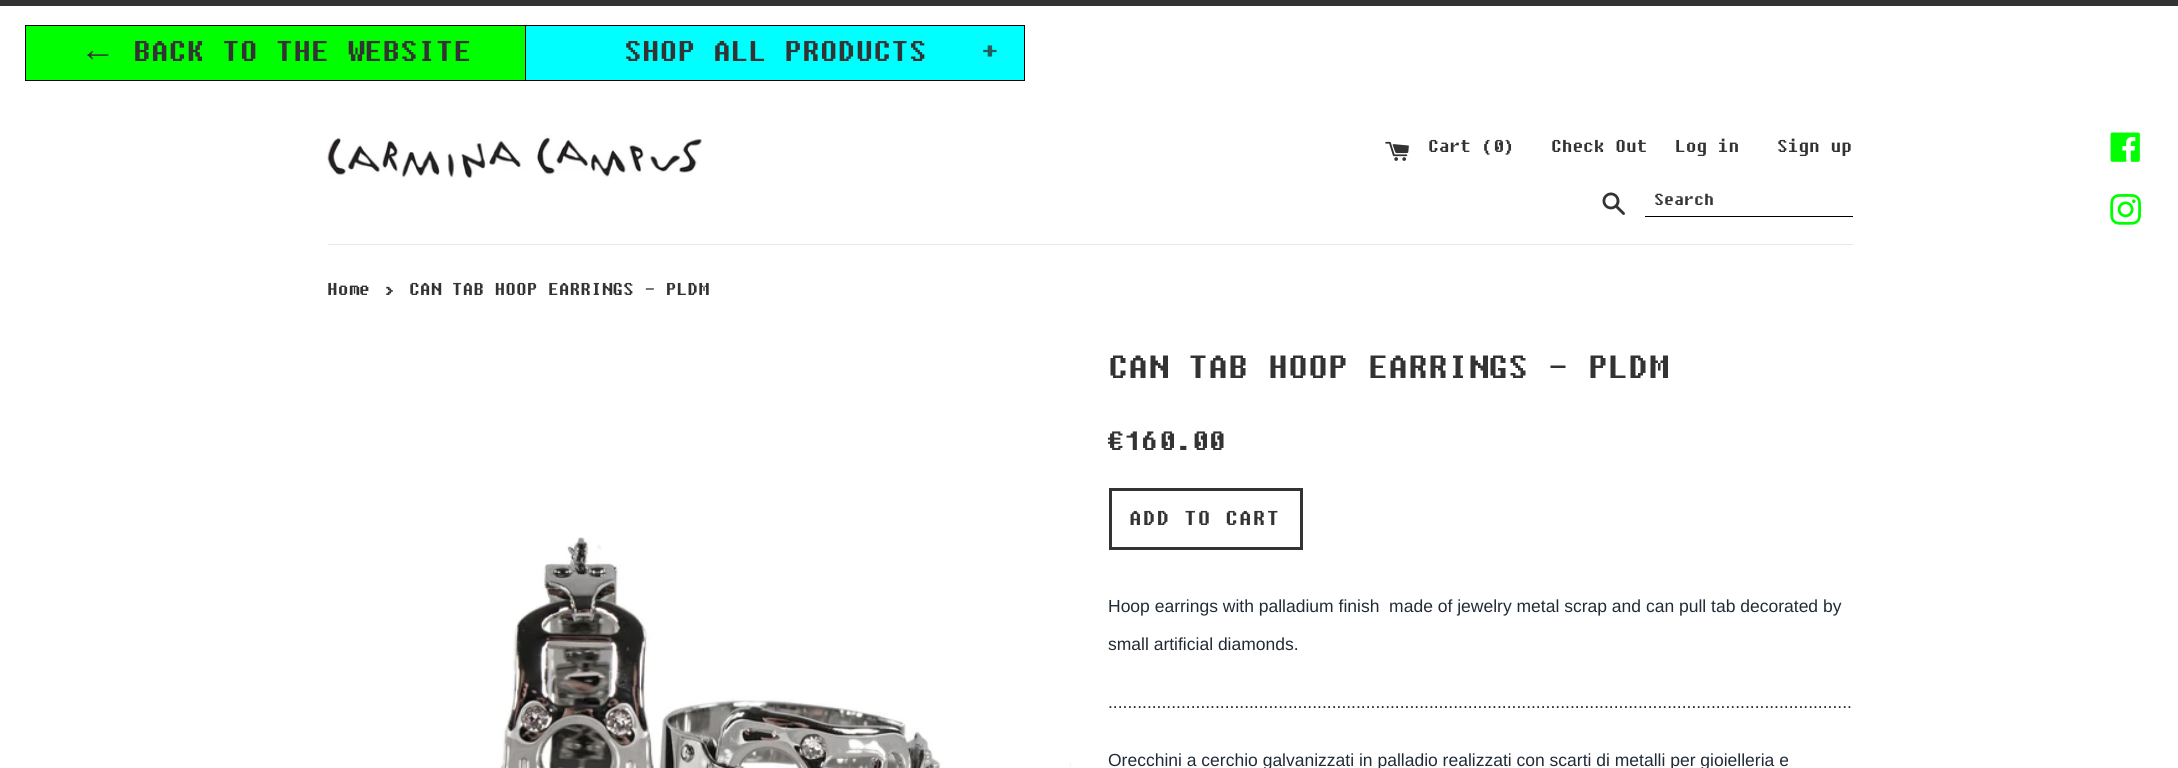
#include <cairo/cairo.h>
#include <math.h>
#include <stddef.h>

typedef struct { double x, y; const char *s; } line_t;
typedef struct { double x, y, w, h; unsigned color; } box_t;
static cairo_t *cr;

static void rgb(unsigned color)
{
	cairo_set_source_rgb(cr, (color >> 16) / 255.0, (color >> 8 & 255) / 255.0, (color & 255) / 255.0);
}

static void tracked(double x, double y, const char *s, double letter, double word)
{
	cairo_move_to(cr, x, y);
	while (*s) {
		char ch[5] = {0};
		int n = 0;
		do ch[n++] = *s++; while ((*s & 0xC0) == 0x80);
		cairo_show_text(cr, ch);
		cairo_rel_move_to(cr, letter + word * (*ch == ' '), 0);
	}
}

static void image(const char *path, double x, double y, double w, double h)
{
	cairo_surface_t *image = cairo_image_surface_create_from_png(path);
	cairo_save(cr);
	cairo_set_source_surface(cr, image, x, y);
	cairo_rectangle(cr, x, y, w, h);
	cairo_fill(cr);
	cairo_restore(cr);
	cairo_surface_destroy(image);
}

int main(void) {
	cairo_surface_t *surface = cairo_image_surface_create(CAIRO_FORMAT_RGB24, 2178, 768);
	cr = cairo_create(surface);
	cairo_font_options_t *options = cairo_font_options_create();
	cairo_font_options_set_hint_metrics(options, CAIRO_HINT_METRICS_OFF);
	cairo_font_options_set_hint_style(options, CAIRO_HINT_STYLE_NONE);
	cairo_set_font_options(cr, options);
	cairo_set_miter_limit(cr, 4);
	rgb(0xffffff);
	cairo_paint(cr);
	{
		static const box_t items[] = {
			{26, 26, 499, 54, 0x00ff00},
			{25, 25, 500, 1, 0x000000},
			{25, 80, 500, 1, 0x000000},
			{25, 25, 1, 56, 0x000000},
		};
		for (size_t i = 0; i < sizeof items / sizeof *items; i++) {
			rgb(items[i].color);
			cairo_rectangle(cr, items[i].x, items[i].y, items[i].w, items[i].h);
			cairo_fill(cr);
		}
	}
	rgb(0x00ffff);
	cairo_rectangle(cr, 525.5, 25.5, 499, 55);
	cairo_fill_preserve(cr);
	rgb(0x000000);
	cairo_set_line_width(cr, 1);
	cairo_stroke(cr);
	image("img/1.png", 2110, 132, 30, 30);
	image("img/2.png", 2110, 194, 31, 31);
	rgb(0xe8e8e8);
	cairo_rectangle(cr, 328, 244, 1525, 1);
	cairo_fill(cr);
	image("img/3.png", 500, 537, 571, 231);
	cairo_rectangle(cr, 1110.5, 489.5, 191, 59);
	rgb(0x333333);
	cairo_set_line_width(cr, 3);
	cairo_stroke(cr);
	cairo_rectangle(cr, 0, 0, 2178, 6);
	cairo_fill(cr);
	image("img/4.png", 327, 135, 375, 43);
	image("img/5.png", 1385, 141, 24, 20);
	image("img/6.png", 1602, 192, 23, 23);
	rgb(0x000000);
	cairo_rectangle(cr, 1645, 216, 208, 1);
	cairo_fill(cr);
	cairo_select_font_face(cr, "Liberation Serif", CAIRO_FONT_SLANT_NORMAL, CAIRO_FONT_WEIGHT_NORMAL);
	cairo_set_font_size(cr, 35.6);
	rgb(0x333333);
	cairo_move_to(cr, 80, 61);
	cairo_show_text(cr, "←");
	cairo_select_font_face(cr, "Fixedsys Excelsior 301", CAIRO_FONT_SLANT_NORMAL, CAIRO_FONT_WEIGHT_NORMAL);
	cairo_move_to(cr, 133, 61);
	cairo_show_text(cr, "BACK TO THE WEBSITE");
	cairo_move_to(cr, 624, 61);
	cairo_show_text(cr, "SHOP ALL PRODUCTS");
	rgb(0x295c5c);
	cairo_move_to(cr, 981, 61);
	cairo_show_text(cr, "+");
	cairo_set_font_size(cr, 21.4);
	rgb(0x333333);
	cairo_move_to(cr, 327, 295);
	cairo_show_text(cr, "Home");
	cairo_set_font_size(cr, 26);
	cairo_move_to(cr, 383, 295);
	cairo_show_text(cr, "›");
	cairo_set_font_size(cr, 21.4);
	cairo_move_to(cr, 409, 295);
	cairo_show_text(cr, "CAN TAB HOOP EARRINGS - PLDM");
	cairo_set_font_size(cr, 40);
	cairo_move_to(cr, 1108, 378);
	cairo_show_text(cr, "CAN TAB HOOP EARRINGS - PLDM");
	cairo_set_font_size(cr, 33);
	cairo_move_to(cr, 1108, 450);
	cairo_show_text(cr, "€160.00");
	cairo_set_font_size(cr, 25);
	tracked(1129, 525, "ADD TO CART", 1.25, 0);
	cairo_select_font_face(cr, "Liberation Sans", CAIRO_FONT_SLANT_NORMAL, CAIRO_FONT_WEIGHT_NORMAL);
	cairo_set_font_size(cr, 17.5);
	rgb(0x212b36);
	{
		static const line_t items[] = {
			{1108, 612, "Hoop earrings with palladium finish  made of jewelry metal scrap and can pull tab decorated by"},
			{1108, 650, "small artificial diamonds."},
			{1108, 708, "........................................................................................................................................................."},
			{1108, 766, "Orecchini a cerchio galvanizzati in palladio realizzati con scarti di metalli per gioielleria e"},
		};
		for (size_t i = 0; i < sizeof items / sizeof *items; i++) {
			cairo_move_to(cr, items[i].x, items[i].y);
			cairo_show_text(cr, items[i].s);
		}
	}
	cairo_select_font_face(cr, "Fixedsys Excelsior 301", CAIRO_FONT_SLANT_NORMAL, CAIRO_FONT_WEIGHT_NORMAL);
	cairo_set_font_size(cr, 21.4);
	rgb(0x333333);
	{
		static const line_t items[] = {
			{1428, 152, "Cart (0)"},
			{1551, 152, "Check Out"},
			{1675, 152, "Log in"},
			{1777, 152, "Sign up"},
		};
		for (size_t i = 0; i < sizeof items / sizeof *items; i++) {
			cairo_move_to(cr, items[i].x, items[i].y);
			cairo_show_text(cr, items[i].s);
		}
	}
	cairo_set_font_size(cr, 20);
	cairo_move_to(cr, 1654, 205);
	cairo_show_text(cr, "Search");
	cairo_surface_write_to_png(surface, "page.png");
	cairo_font_options_destroy(options);
	cairo_destroy(cr);
	cairo_surface_destroy(surface);
	return 0;
}
